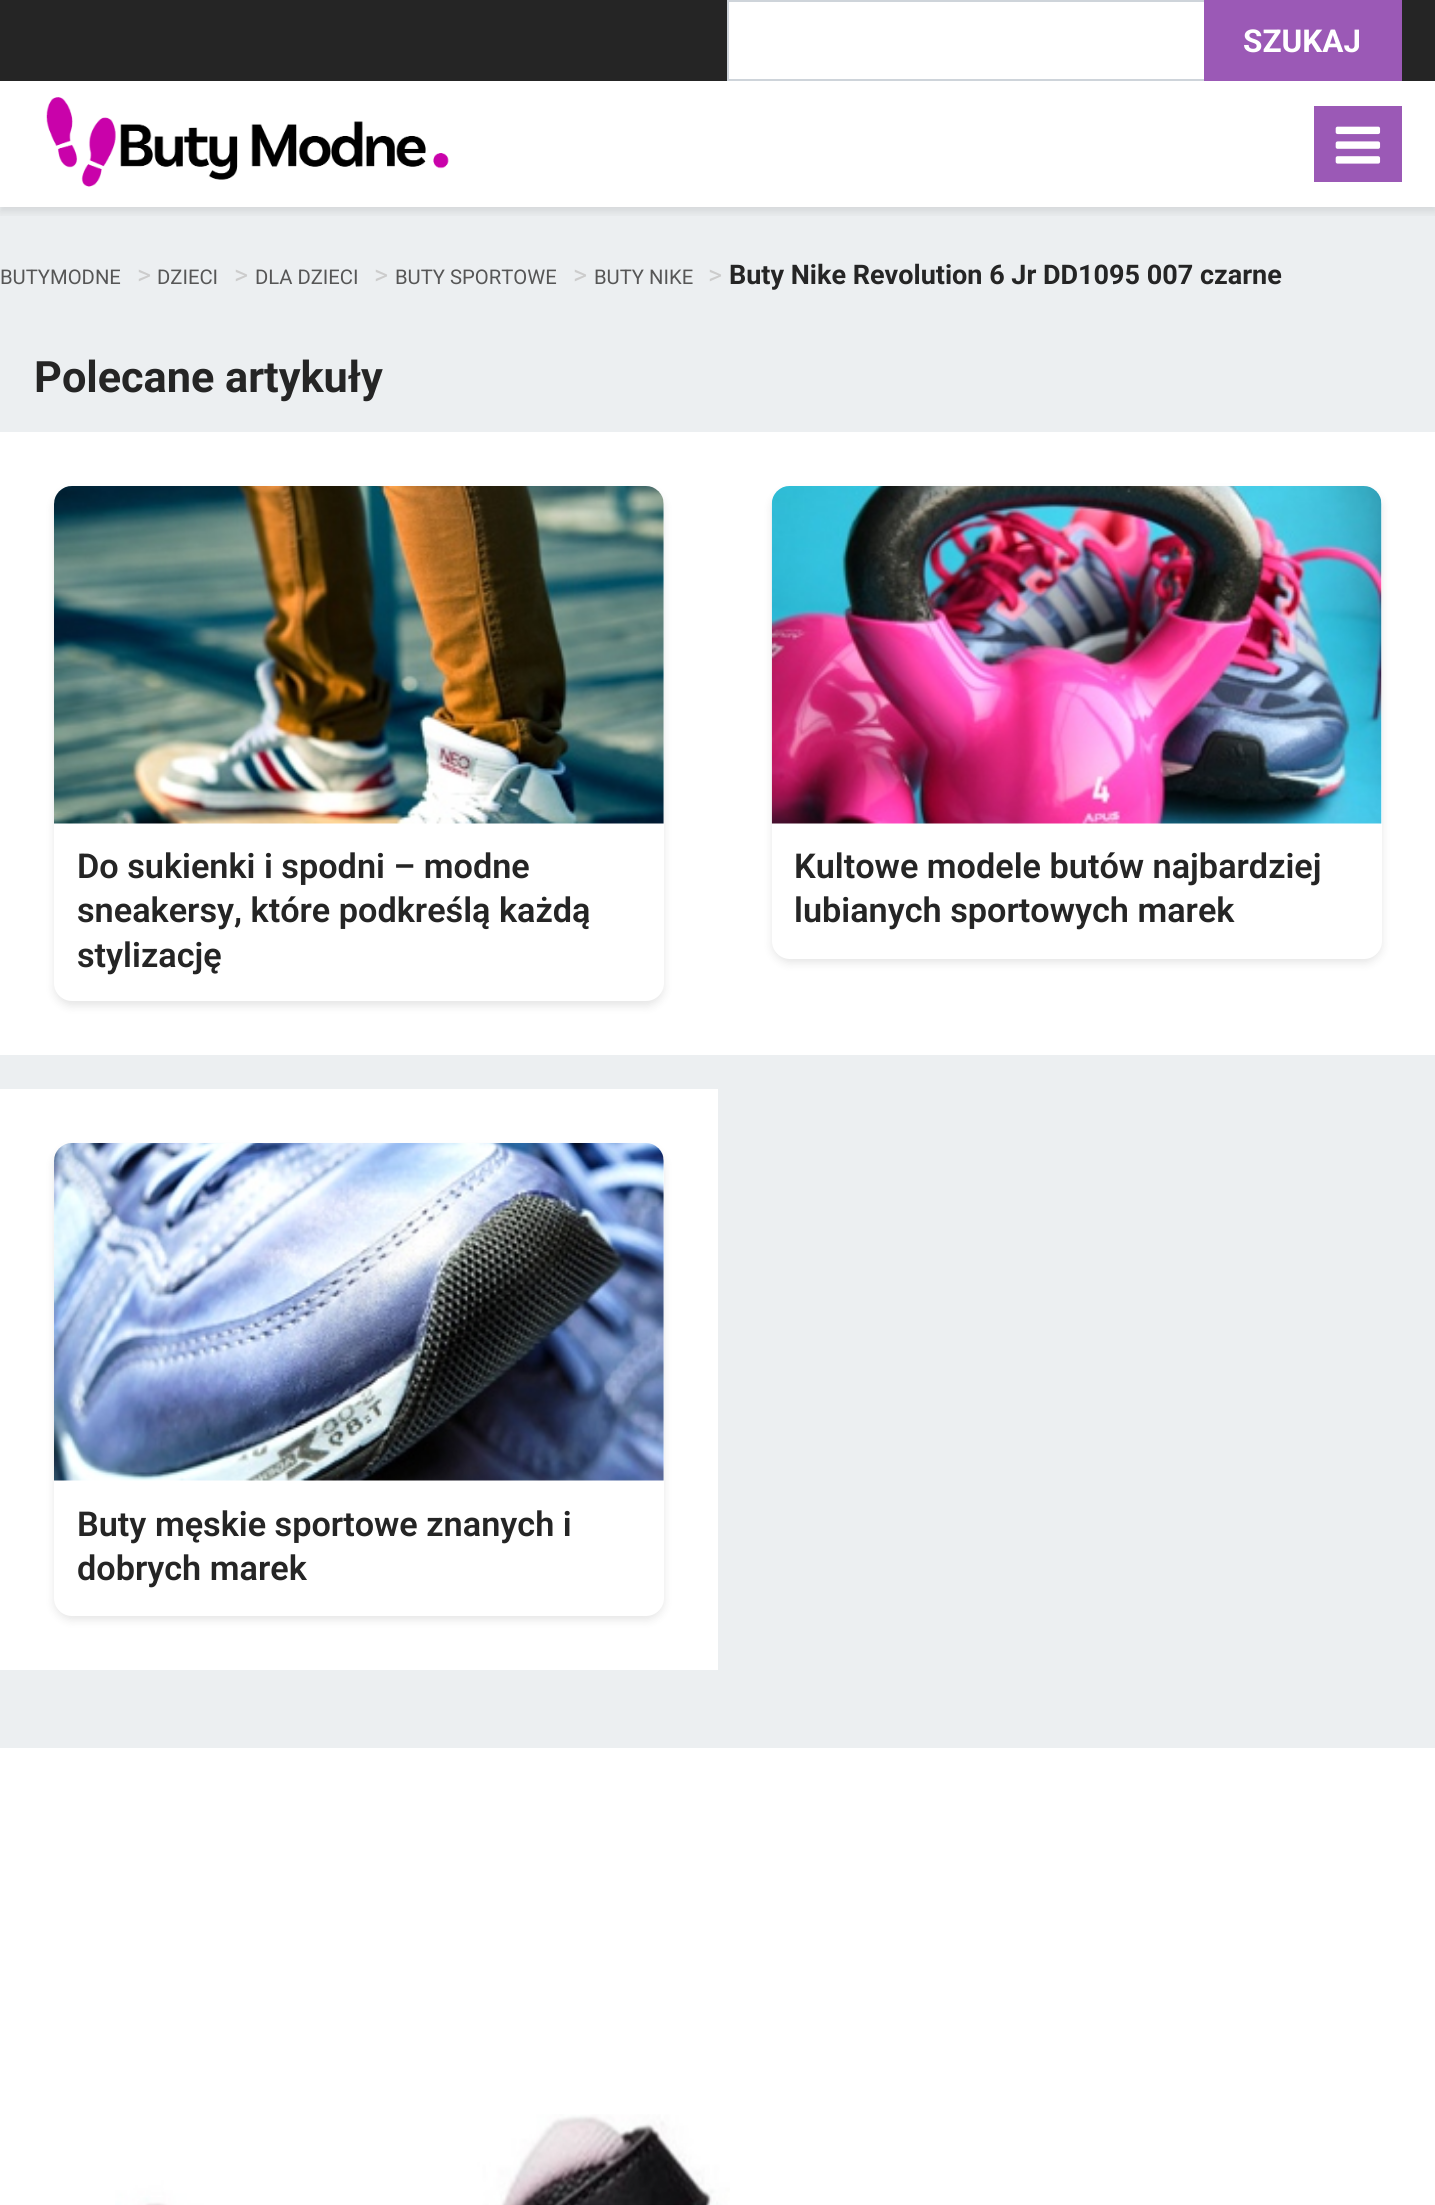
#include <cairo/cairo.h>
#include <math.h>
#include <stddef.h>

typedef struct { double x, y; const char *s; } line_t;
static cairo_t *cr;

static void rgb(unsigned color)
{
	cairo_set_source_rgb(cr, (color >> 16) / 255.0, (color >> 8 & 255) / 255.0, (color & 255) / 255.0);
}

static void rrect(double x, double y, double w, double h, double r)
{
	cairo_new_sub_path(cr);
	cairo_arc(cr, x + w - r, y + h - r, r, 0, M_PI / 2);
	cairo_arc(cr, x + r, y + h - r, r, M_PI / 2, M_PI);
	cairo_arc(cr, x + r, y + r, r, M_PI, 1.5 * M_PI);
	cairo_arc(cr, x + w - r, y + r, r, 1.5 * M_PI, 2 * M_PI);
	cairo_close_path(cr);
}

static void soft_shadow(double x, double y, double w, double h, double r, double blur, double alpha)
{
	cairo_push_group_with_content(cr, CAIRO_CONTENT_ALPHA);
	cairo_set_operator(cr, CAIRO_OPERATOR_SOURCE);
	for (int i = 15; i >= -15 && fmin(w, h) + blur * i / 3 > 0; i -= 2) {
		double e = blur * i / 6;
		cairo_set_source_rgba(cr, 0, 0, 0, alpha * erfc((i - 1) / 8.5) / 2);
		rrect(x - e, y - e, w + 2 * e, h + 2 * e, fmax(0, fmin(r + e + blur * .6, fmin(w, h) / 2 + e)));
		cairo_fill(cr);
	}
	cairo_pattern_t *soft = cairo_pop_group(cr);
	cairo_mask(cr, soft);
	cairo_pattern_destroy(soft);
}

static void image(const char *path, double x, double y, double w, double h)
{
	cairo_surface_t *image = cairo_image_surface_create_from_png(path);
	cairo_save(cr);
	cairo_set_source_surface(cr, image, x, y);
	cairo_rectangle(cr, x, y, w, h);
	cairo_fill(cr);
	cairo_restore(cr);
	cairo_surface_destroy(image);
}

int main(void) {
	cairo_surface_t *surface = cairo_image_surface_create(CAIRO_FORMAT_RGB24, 1435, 2205);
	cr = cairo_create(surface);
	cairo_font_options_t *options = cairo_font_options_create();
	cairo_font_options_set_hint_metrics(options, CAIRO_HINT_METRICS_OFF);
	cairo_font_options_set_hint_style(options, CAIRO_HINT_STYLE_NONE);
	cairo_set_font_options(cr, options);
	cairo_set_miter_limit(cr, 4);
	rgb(0xffffff);
	cairo_paint(cr);
	rgb(0x252525);
	cairo_rectangle(cr, 0, 0, 1435, 81);
	cairo_fill(cr);
	rgb(0xffffff);
	cairo_rectangle(cr, 729, 2, 475, 77);
	cairo_fill(cr);
	cairo_rectangle(cr, 728, 1, 673, 79);
	rgb(0xced4da);
	cairo_stroke(cr);
	rgb(0xeceff1);
	cairo_rectangle(cr, 0, 207, 1435, 1541);
	cairo_fill(cr);
	cairo_save(cr);
	cairo_rectangle(cr, 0, 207, 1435, 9);
	cairo_clip(cr);
	rgb(0x000000);
	soft_shadow(0, 86, 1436, 126, 0, 4.5, 0.1);
	cairo_restore(cr);
	rgb(0x9b59b6);
	cairo_rectangle(cr, 1204, 0, 198, 81);
	cairo_fill(cr);
	image("img/1.png", 46, 97, 403, 90);
	cairo_rectangle(cr, 1314, 106, 88, 76);
	cairo_fill(cr);
	image("img/2.png", 1335, 126, 46, 38);
	rgb(0xffffff);
	cairo_rectangle(cr, 0, 432, 1435, 623);
	cairo_fill(cr);
	rgb(0x000000);
	soft_shadow(54, 491, 610, 515, 18, 4.5, 0.1);
	rgb(0xffffff);
	rrect(54, 486, 610, 515, 18);
	cairo_fill(cr);
	image("img/3.png", 54, 486, 610, 338);
	rgb(0x000000);
	soft_shadow(772, 491, 610, 472, 18, 4.5, 0.1);
	rgb(0xffffff);
	rrect(772, 486, 610, 473, 18);
	cairo_fill(cr);
	image("img/4.png", 771, 486, 611, 338);
	cairo_rectangle(cr, 0, 1089, 718, 581);
	cairo_fill(cr);
	rgb(0x000000);
	soft_shadow(54, 1148, 610, 472, 18, 4.5, 0.1);
	rgb(0xffffff);
	rrect(54, 1143, 610, 473, 18);
	cairo_fill(cr);
	image("img/5.png", 54, 1143, 610, 338);
	image("img/6.png", 115, 2114, 615, 91);
	cairo_select_font_face(cr, "Roboto", CAIRO_FONT_SLANT_NORMAL, CAIRO_FONT_WEIGHT_BOLD);
	cairo_set_font_size(cr, 31.5);
	cairo_move_to(cr, 1243, 52);
	cairo_show_text(cr, "SZUKAJ");
	cairo_select_font_face(cr, "Roboto", CAIRO_FONT_SLANT_NORMAL, CAIRO_FONT_WEIGHT_NORMAL);
	cairo_set_font_size(cr, 20.25);
	rgb(0x565656);
	cairo_move_to(cr, 0, 284);
	cairo_show_text(cr, "BUTYMODNE");
	cairo_set_font_size(cr, 27);
	rgb(0xcccccc);
	cairo_move_to(cr, 137, 284);
	cairo_show_text(cr, ">");
	cairo_set_font_size(cr, 20.25);
	rgb(0x565656);
	cairo_move_to(cr, 157, 284);
	cairo_show_text(cr, "DZIECI");
	cairo_set_font_size(cr, 27);
	rgb(0xcccccc);
	cairo_move_to(cr, 234, 284);
	cairo_show_text(cr, ">");
	cairo_set_font_size(cr, 20.25);
	rgb(0x565656);
	cairo_move_to(cr, 255, 284);
	cairo_show_text(cr, "DLA DZIECI");
	cairo_set_font_size(cr, 27);
	rgb(0xcccccc);
	cairo_move_to(cr, 374, 284);
	cairo_show_text(cr, ">");
	cairo_set_font_size(cr, 20.25);
	rgb(0x565656);
	cairo_move_to(cr, 395, 284);
	cairo_show_text(cr, "BUTY SPORTOWE");
	cairo_set_font_size(cr, 27);
	rgb(0xcccccc);
	cairo_move_to(cr, 573, 284);
	cairo_show_text(cr, ">");
	cairo_set_font_size(cr, 20.25);
	rgb(0x565656);
	cairo_move_to(cr, 594, 284);
	cairo_show_text(cr, "BUTY NIKE");
	cairo_set_font_size(cr, 27);
	rgb(0xcccccc);
	cairo_move_to(cr, 708, 284);
	cairo_show_text(cr, ">");
	cairo_select_font_face(cr, "Roboto", CAIRO_FONT_SLANT_NORMAL, CAIRO_FONT_WEIGHT_BOLD);
	rgb(0x252525);
	cairo_move_to(cr, 729, 284);
	cairo_show_text(cr, "Buty Nike Revolution 6 Jr DD1095 007 czarne");
	cairo_set_font_size(cr, 43.25);
	cairo_move_to(cr, 34, 392);
	cairo_show_text(cr, "Polecane artykuły");
	cairo_select_font_face(cr, "Roboto SemiBold", CAIRO_FONT_SLANT_NORMAL, CAIRO_FONT_WEIGHT_NORMAL);
	cairo_set_font_size(cr, 34.25);
	{
		static const line_t items[] = {
			{77, 878, "Do sukienki i spodni – modne"},
			{77, 922, "sneakersy, które podkreślą każdą"},
			{77, 967, "stylizację"},
			{794, 878, "Kultowe modele butów najbardziej"},
			{794, 922, "lubianych sportowych marek"},
			{77, 1536, "Buty męskie sportowe znanych i"},
			{77, 1580, "dobrych marek"},
		};
		for (size_t i = 0; i < sizeof items / sizeof *items; i++) {
			cairo_move_to(cr, items[i].x, items[i].y);
			cairo_show_text(cr, items[i].s);
		}
	}
	cairo_surface_write_to_png(surface, "page.png");
	cairo_font_options_destroy(options);
	cairo_destroy(cr);
	cairo_surface_destroy(surface);
	return 0;
}
